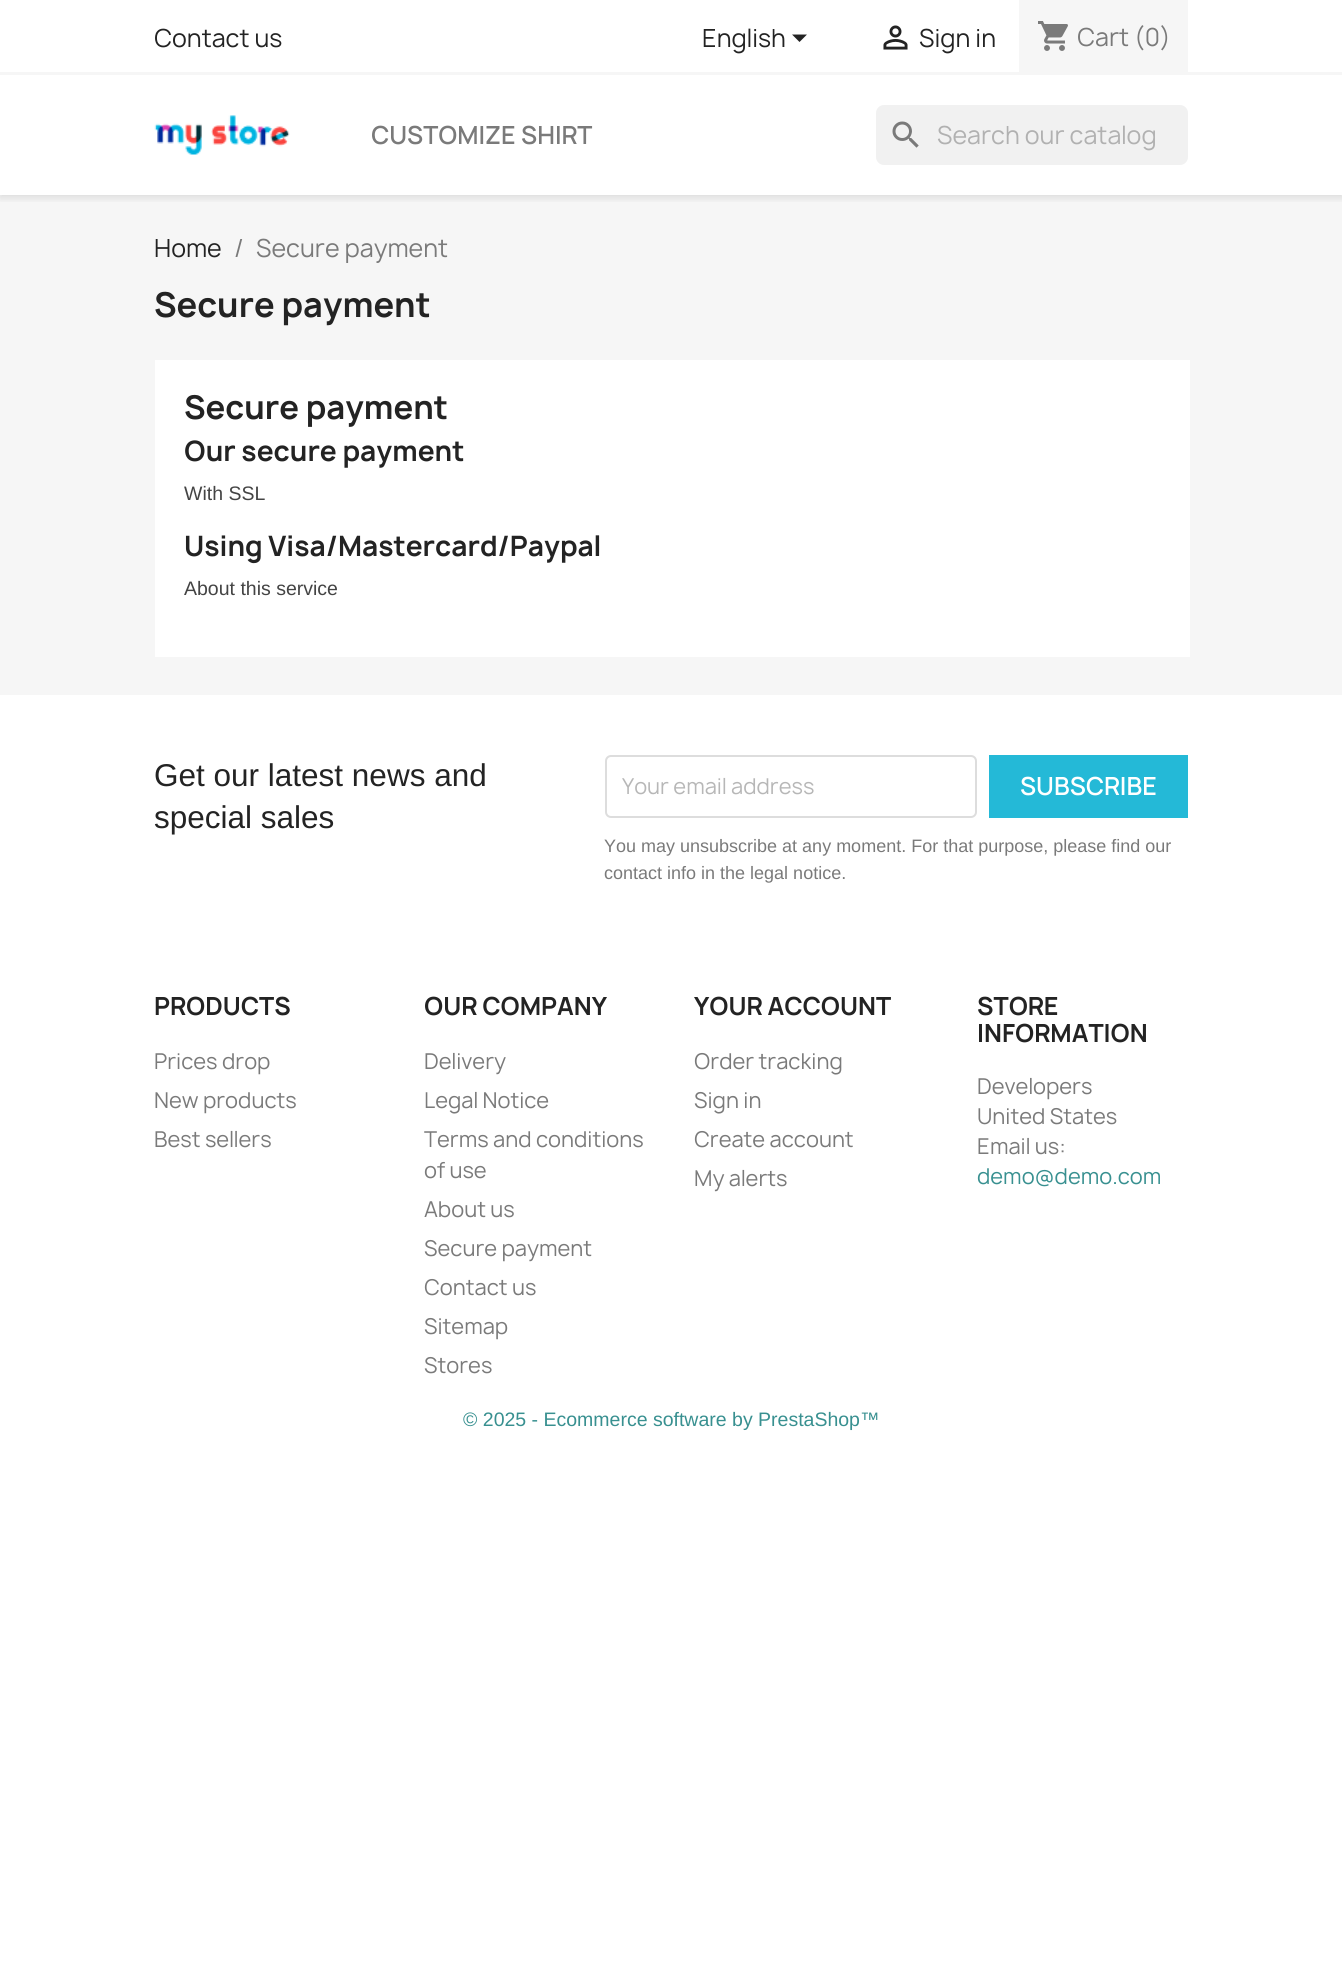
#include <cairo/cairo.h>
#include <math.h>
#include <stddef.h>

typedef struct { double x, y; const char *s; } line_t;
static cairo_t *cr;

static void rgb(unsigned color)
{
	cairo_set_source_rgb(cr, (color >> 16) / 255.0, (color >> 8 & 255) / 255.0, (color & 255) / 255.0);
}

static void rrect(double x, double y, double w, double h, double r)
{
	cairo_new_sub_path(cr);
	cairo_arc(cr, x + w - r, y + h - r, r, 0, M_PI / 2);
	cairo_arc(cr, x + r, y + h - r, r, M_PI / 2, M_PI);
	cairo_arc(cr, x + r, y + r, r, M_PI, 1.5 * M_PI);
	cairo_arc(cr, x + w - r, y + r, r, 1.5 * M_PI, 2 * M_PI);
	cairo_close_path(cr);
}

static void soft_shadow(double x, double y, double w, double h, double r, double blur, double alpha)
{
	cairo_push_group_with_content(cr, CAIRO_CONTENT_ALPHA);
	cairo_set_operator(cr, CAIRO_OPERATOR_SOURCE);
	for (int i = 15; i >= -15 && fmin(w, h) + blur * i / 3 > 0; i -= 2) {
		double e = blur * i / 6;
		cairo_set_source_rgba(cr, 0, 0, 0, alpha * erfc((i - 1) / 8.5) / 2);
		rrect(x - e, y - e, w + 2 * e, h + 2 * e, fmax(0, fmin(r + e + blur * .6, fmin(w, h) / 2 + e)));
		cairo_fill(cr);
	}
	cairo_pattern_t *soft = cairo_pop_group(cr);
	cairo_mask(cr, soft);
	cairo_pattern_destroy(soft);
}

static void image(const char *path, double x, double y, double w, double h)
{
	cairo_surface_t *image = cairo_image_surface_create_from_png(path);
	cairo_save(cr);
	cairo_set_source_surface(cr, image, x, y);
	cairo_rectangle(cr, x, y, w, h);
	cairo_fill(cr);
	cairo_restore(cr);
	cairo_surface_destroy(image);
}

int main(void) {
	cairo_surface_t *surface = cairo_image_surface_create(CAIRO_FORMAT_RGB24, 1342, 1972);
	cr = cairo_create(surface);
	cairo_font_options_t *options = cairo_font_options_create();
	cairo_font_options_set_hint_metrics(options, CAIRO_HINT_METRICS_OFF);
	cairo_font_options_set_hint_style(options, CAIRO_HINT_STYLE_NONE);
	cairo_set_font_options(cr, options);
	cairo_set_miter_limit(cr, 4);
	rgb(0xffffff);
	cairo_paint(cr);
	rgb(0xf6f6f6);
	cairo_rectangle(cr, 0, 195, 1342, 500);
	cairo_fill(cr);
	cairo_save(cr);
	cairo_rectangle(cr, 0, 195, 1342, 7);
	cairo_clip(cr);
	rgb(0x000000);
	soft_shadow(0, 3, 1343, 195, 0, 4, 0.11);
	cairo_restore(cr);
	cairo_rectangle(cr, 0, 72, 1342, 3);
	cairo_fill(cr);
	rgb(0x232323);
	cairo_new_path(cr);
	cairo_move_to(cr, 792, 34.5);
	cairo_line_to(cr, 807, 34.5);
	cairo_line_to(cr, 799.5, 42);
	cairo_close_path(cr);
	cairo_fill(cr);
	image("img/1.png", 883, 25, 25, 25);
	rgb(0xf6f6f6);
	cairo_rectangle(cr, 1019, 0, 169, 72);
	cairo_fill(cr);
	image("img/2.png", 1038, 21, 30, 30);
	image("img/3.png", 154, 115, 136, 40);
	rgb(0xf1f1f1);
	rrect(876, 105, 312, 60, 8);
	cairo_fill(cr);
	image("img/4.png", 892, 121, 27, 27);
	rgb(0xffffff);
	cairo_rectangle(cr, 155, 360, 1035, 297);
	cairo_fill(cr);
	rrect(606, 756, 370, 61, 5);
	rgb(0xdddddd);
	cairo_stroke(cr);
	rgb(0x24b9d7);
	cairo_rectangle(cr, 989, 755, 199, 63);
	cairo_fill(cr);
	cairo_select_font_face(cr, "Manrope", CAIRO_FONT_SLANT_NORMAL, CAIRO_FONT_WEIGHT_NORMAL);
	cairo_set_font_size(cr, 24);
	rgb(0x232323);
	{
		static const line_t items[] = {
			{154, 47, "Contact us"},
			{702, 47, "English"},
			{919, 47, "Sign in"},
		};
		for (size_t i = 0; i < sizeof items / sizeof *items; i++) {
			cairo_move_to(cr, items[i].x, items[i].y);
			cairo_show_text(cr, items[i].s);
		}
	}
	rgb(0x7a7a7a);
	cairo_move_to(cr, 1077, 46);
	cairo_show_text(cr, "Cart (0)");
	cairo_select_font_face(cr, "Manrope SemiBold", CAIRO_FONT_SLANT_NORMAL, CAIRO_FONT_WEIGHT_NORMAL);
	cairo_move_to(cr, 371, 144);
	cairo_show_text(cr, "CUSTOMIZE SHIRT");
	cairo_select_font_face(cr, "Manrope", CAIRO_FONT_SLANT_NORMAL, CAIRO_FONT_WEIGHT_NORMAL);
	rgb(0xb1b1b1);
	cairo_move_to(cr, 937, 144);
	cairo_show_text(cr, "Search our catalog");
	rgb(0x232323);
	cairo_move_to(cr, 154, 257);
	cairo_show_text(cr, "Home");
	rgb(0x7a7a7a);
	cairo_move_to(cr, 234, 257);
	cairo_show_text(cr, "/");
	cairo_move_to(cr, 256, 257);
	cairo_show_text(cr, "Secure payment");
	cairo_select_font_face(cr, "Manrope", CAIRO_FONT_SLANT_NORMAL, CAIRO_FONT_WEIGHT_BOLD);
	cairo_set_font_size(cr, 33);
	rgb(0x232323);
	cairo_move_to(cr, 154, 317);
	cairo_show_text(cr, "Secure payment");
	cairo_set_font_size(cr, 31.5);
	cairo_move_to(cr, 184, 419);
	cairo_show_text(cr, "Secure payment");
	cairo_set_font_size(cr, 27);
	cairo_move_to(cr, 184, 461);
	cairo_show_text(cr, "Our secure payment");
	cairo_select_font_face(cr, "Liberation Sans", CAIRO_FONT_SLANT_NORMAL, CAIRO_FONT_WEIGHT_NORMAL);
	cairo_set_font_size(cr, 19.5);
	rgb(0x444444);
	cairo_move_to(cr, 184, 500);
	cairo_show_text(cr, "With SSL");
	cairo_select_font_face(cr, "Manrope", CAIRO_FONT_SLANT_NORMAL, CAIRO_FONT_WEIGHT_BOLD);
	cairo_set_font_size(cr, 27);
	rgb(0x232323);
	cairo_move_to(cr, 184, 556);
	cairo_show_text(cr, "Using Visa/Mastercard/Paypal");
	cairo_select_font_face(cr, "Liberation Sans", CAIRO_FONT_SLANT_NORMAL, CAIRO_FONT_WEIGHT_NORMAL);
	cairo_set_font_size(cr, 19.5);
	rgb(0x444444);
	cairo_move_to(cr, 184, 595);
	cairo_show_text(cr, "About this service");
	cairo_set_font_size(cr, 31.5);
	rgb(0x232323);
	cairo_move_to(cr, 154, 786);
	cairo_show_text(cr, "Get our latest news and");
	cairo_move_to(cr, 154, 828);
	cairo_show_text(cr, "special sales");
	cairo_select_font_face(cr, "Manrope", CAIRO_FONT_SLANT_NORMAL, CAIRO_FONT_WEIGHT_NORMAL);
	cairo_set_font_size(cr, 21);
	rgb(0xb7b7b7);
	cairo_move_to(cr, 622, 794);
	cairo_show_text(cr, "Your email address");
	cairo_select_font_face(cr, "Manrope SemiBold", CAIRO_FONT_SLANT_NORMAL, CAIRO_FONT_WEIGHT_NORMAL);
	cairo_set_font_size(cr, 24);
	rgb(0xffffff);
	cairo_move_to(cr, 1020, 795);
	cairo_show_text(cr, "SUBSCRIBE");
	cairo_select_font_face(cr, "Liberation Sans", CAIRO_FONT_SLANT_NORMAL, CAIRO_FONT_WEIGHT_NORMAL);
	cairo_set_font_size(cr, 18);
	rgb(0x7a7a7a);
	cairo_move_to(cr, 604, 852);
	cairo_show_text(cr, "You may unsubscribe at any moment. For that purpose, please find our");
	cairo_move_to(cr, 604, 879);
	cairo_show_text(cr, "contact info in the legal notice.");
	cairo_select_font_face(cr, "Manrope", CAIRO_FONT_SLANT_NORMAL, CAIRO_FONT_WEIGHT_BOLD);
	cairo_set_font_size(cr, 24);
	rgb(0x232323);
	cairo_move_to(cr, 154, 1015);
	cairo_show_text(cr, "PRODUCTS");
	cairo_select_font_face(cr, "Manrope", CAIRO_FONT_SLANT_NORMAL, CAIRO_FONT_WEIGHT_NORMAL);
	cairo_set_font_size(cr, 21);
	rgb(0x7a7a7a);
	{
		static const line_t items[] = {
			{154, 1069, "Prices drop"},
			{154, 1108, "New products"},
			{154, 1147, "Best sellers"},
		};
		for (size_t i = 0; i < sizeof items / sizeof *items; i++) {
			cairo_move_to(cr, items[i].x, items[i].y);
			cairo_show_text(cr, items[i].s);
		}
	}
	cairo_select_font_face(cr, "Manrope", CAIRO_FONT_SLANT_NORMAL, CAIRO_FONT_WEIGHT_BOLD);
	cairo_set_font_size(cr, 24);
	rgb(0x232323);
	cairo_move_to(cr, 424, 1015);
	cairo_show_text(cr, "OUR COMPANY");
	cairo_select_font_face(cr, "Manrope", CAIRO_FONT_SLANT_NORMAL, CAIRO_FONT_WEIGHT_NORMAL);
	cairo_set_font_size(cr, 21);
	rgb(0x7a7a7a);
	{
		static const line_t items[] = {
			{424, 1069, "Delivery"},
			{424, 1108, "Legal Notice"},
			{424, 1147, "Terms and conditions"},
			{424, 1178, "of use"},
			{424, 1217, "About us"},
			{424, 1256, "Secure payment"},
			{424, 1295, "Contact us"},
			{424, 1334, "Sitemap"},
			{424, 1373, "Stores"},
		};
		for (size_t i = 0; i < sizeof items / sizeof *items; i++) {
			cairo_move_to(cr, items[i].x, items[i].y);
			cairo_show_text(cr, items[i].s);
		}
	}
	cairo_select_font_face(cr, "Manrope", CAIRO_FONT_SLANT_NORMAL, CAIRO_FONT_WEIGHT_BOLD);
	cairo_set_font_size(cr, 24);
	rgb(0x232323);
	cairo_move_to(cr, 694, 1015);
	cairo_show_text(cr, "YOUR ACCOUNT");
	cairo_select_font_face(cr, "Manrope", CAIRO_FONT_SLANT_NORMAL, CAIRO_FONT_WEIGHT_NORMAL);
	cairo_set_font_size(cr, 21);
	rgb(0x7a7a7a);
	{
		static const line_t items[] = {
			{694, 1069, "Order tracking"},
			{694, 1108, "Sign in"},
			{694, 1147, "Create account"},
			{694, 1186, "My alerts"},
		};
		for (size_t i = 0; i < sizeof items / sizeof *items; i++) {
			cairo_move_to(cr, items[i].x, items[i].y);
			cairo_show_text(cr, items[i].s);
		}
	}
	cairo_select_font_face(cr, "Manrope", CAIRO_FONT_SLANT_NORMAL, CAIRO_FONT_WEIGHT_BOLD);
	cairo_set_font_size(cr, 24);
	rgb(0x232323);
	cairo_move_to(cr, 977, 1015);
	cairo_show_text(cr, "STORE");
	cairo_move_to(cr, 977, 1042);
	cairo_show_text(cr, "INFORMATION");
	cairo_select_font_face(cr, "Manrope", CAIRO_FONT_SLANT_NORMAL, CAIRO_FONT_WEIGHT_NORMAL);
	cairo_set_font_size(cr, 21);
	rgb(0x7a7a7a);
	{
		static const line_t items[] = {
			{977, 1094, "Developers"},
			{977, 1124, "United States"},
			{977, 1154, "Email us:"},
		};
		for (size_t i = 0; i < sizeof items / sizeof *items; i++) {
			cairo_move_to(cr, items[i].x, items[i].y);
			cairo_show_text(cr, items[i].s);
		}
	}
	rgb(0x389090);
	cairo_move_to(cr, 977, 1184);
	cairo_show_text(cr, "demo@demo.com");
	cairo_select_font_face(cr, "Liberation Sans", CAIRO_FONT_SLANT_NORMAL, CAIRO_FONT_WEIGHT_NORMAL);
	cairo_set_font_size(cr, 19.5);
	cairo_move_to(cr, 463, 1426);
	cairo_show_text(cr, "© 2025 - Ecommerce software by PrestaShop™");
	cairo_surface_write_to_png(surface, "page.png");
	cairo_font_options_destroy(options);
	cairo_destroy(cr);
	cairo_surface_destroy(surface);
	return 0;
}
